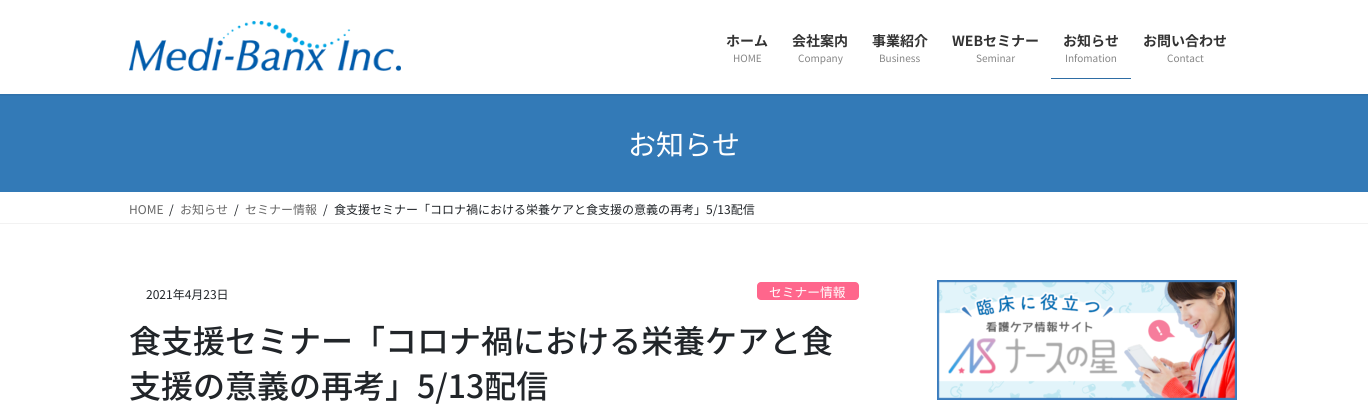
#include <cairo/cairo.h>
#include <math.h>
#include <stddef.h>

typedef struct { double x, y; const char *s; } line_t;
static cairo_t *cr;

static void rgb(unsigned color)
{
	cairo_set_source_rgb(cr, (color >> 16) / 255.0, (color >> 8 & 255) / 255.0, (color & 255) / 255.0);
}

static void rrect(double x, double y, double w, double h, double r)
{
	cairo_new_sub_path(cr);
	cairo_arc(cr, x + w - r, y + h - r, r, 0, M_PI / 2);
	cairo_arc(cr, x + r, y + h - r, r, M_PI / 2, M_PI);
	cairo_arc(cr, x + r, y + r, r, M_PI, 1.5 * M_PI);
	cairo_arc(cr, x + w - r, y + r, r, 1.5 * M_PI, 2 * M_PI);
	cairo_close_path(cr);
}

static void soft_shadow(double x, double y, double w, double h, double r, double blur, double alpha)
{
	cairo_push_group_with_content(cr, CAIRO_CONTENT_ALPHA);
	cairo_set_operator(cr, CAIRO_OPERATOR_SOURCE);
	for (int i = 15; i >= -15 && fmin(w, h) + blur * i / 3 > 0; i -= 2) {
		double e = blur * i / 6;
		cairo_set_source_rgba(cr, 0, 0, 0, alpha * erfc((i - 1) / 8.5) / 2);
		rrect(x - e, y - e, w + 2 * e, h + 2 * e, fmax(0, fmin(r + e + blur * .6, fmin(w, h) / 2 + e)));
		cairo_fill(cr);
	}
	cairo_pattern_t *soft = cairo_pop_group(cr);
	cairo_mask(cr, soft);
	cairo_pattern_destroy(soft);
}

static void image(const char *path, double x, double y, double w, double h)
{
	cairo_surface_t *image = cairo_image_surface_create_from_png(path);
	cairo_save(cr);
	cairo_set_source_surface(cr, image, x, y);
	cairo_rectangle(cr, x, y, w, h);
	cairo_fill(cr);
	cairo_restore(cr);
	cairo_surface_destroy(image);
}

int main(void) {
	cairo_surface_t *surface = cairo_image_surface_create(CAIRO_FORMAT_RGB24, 1368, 411);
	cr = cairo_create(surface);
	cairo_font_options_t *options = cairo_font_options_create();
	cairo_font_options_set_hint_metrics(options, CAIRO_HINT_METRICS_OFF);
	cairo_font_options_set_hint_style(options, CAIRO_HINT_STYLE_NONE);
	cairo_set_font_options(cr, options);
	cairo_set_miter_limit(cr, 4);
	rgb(0xffffff);
	cairo_paint(cr);
	rgb(0x337ab7);
	cairo_rectangle(cr, 0, 94, 1368, 98);
	cairo_fill(cr);
	cairo_save(cr);
	cairo_rectangle(cr, 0, 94, 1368, 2);
	cairo_clip(cr);
	rgb(0x000000);
	soft_shadow(0, 1, 1368, 94, 0, 1.5, 0.1);
	cairo_restore(cr);
	image("img/1.png", 129, 21, 272, 50);
	rgb(0x2e6da4);
	cairo_rectangle(cr, 1051, 78, 80, 1);
	cairo_fill(cr);
	rgb(0xf2f2f2);
	cairo_rectangle(cr, 0, 223, 1368, 1);
	cairo_fill(cr);
	rgb(0xff668c);
	rrect(757, 282, 102, 18, 4);
	cairo_fill(cr);
	image("img/2.png", 937, 280, 300, 120);
	cairo_select_font_face(cr, "Noto Sans JP", CAIRO_FONT_SLANT_NORMAL, CAIRO_FONT_WEIGHT_BOLD);
	cairo_set_font_size(cr, 14);
	rgb(0x333333);
	cairo_move_to(cr, 726, 46);
	cairo_show_text(cr, "ホーム");
	cairo_select_font_face(cr, "Noto Sans JP", CAIRO_FONT_SLANT_NORMAL, CAIRO_FONT_WEIGHT_NORMAL);
	cairo_set_font_size(cr, 10);
	rgb(0x858585);
	cairo_move_to(cr, 733, 62);
	cairo_show_text(cr, "HOME");
	cairo_select_font_face(cr, "Noto Sans JP", CAIRO_FONT_SLANT_NORMAL, CAIRO_FONT_WEIGHT_BOLD);
	cairo_set_font_size(cr, 14);
	rgb(0x333333);
	cairo_move_to(cr, 792, 46);
	cairo_show_text(cr, "会社案内");
	cairo_select_font_face(cr, "Noto Sans JP", CAIRO_FONT_SLANT_NORMAL, CAIRO_FONT_WEIGHT_NORMAL);
	cairo_set_font_size(cr, 10);
	rgb(0x858585);
	cairo_move_to(cr, 798, 62);
	cairo_show_text(cr, "Company");
	cairo_select_font_face(cr, "Noto Sans JP", CAIRO_FONT_SLANT_NORMAL, CAIRO_FONT_WEIGHT_BOLD);
	cairo_set_font_size(cr, 14);
	rgb(0x333333);
	cairo_move_to(cr, 872, 46);
	cairo_show_text(cr, "事業紹介");
	cairo_select_font_face(cr, "Noto Sans JP", CAIRO_FONT_SLANT_NORMAL, CAIRO_FONT_WEIGHT_NORMAL);
	cairo_set_font_size(cr, 10);
	rgb(0x858585);
	cairo_move_to(cr, 879, 62);
	cairo_show_text(cr, "Business");
	cairo_select_font_face(cr, "Noto Sans JP", CAIRO_FONT_SLANT_NORMAL, CAIRO_FONT_WEIGHT_BOLD);
	cairo_set_font_size(cr, 14);
	rgb(0x333333);
	cairo_move_to(cr, 952, 46);
	cairo_show_text(cr, "WEBセミナー");
	cairo_select_font_face(cr, "Noto Sans JP", CAIRO_FONT_SLANT_NORMAL, CAIRO_FONT_WEIGHT_NORMAL);
	cairo_set_font_size(cr, 10);
	rgb(0x858585);
	cairo_move_to(cr, 976, 62);
	cairo_show_text(cr, "Seminar");
	cairo_select_font_face(cr, "Noto Sans JP", CAIRO_FONT_SLANT_NORMAL, CAIRO_FONT_WEIGHT_BOLD);
	cairo_set_font_size(cr, 14);
	rgb(0x333333);
	cairo_move_to(cr, 1063, 46);
	cairo_show_text(cr, "お知らせ");
	cairo_select_font_face(cr, "Noto Sans JP", CAIRO_FONT_SLANT_NORMAL, CAIRO_FONT_WEIGHT_NORMAL);
	cairo_set_font_size(cr, 10);
	rgb(0x858585);
	cairo_move_to(cr, 1065, 62);
	cairo_show_text(cr, "Infomation");
	cairo_select_font_face(cr, "Noto Sans JP", CAIRO_FONT_SLANT_NORMAL, CAIRO_FONT_WEIGHT_BOLD);
	cairo_set_font_size(cr, 14);
	rgb(0x333333);
	cairo_move_to(cr, 1143, 46);
	cairo_show_text(cr, "お問い合わせ");
	cairo_select_font_face(cr, "Noto Sans JP", CAIRO_FONT_SLANT_NORMAL, CAIRO_FONT_WEIGHT_NORMAL);
	cairo_set_font_size(cr, 10);
	rgb(0x858585);
	cairo_move_to(cr, 1167, 62);
	cairo_show_text(cr, "Contact");
	cairo_set_font_size(cr, 28);
	rgb(0xffffff);
	cairo_move_to(cr, 628, 155);
	cairo_show_text(cr, "お知らせ");
	cairo_set_font_size(cr, 12);
	rgb(0x666666);
	cairo_move_to(cr, 129, 214);
	cairo_show_text(cr, "HOME");
	rgb(0x212529);
	cairo_move_to(cr, 169, 214);
	cairo_show_text(cr, "/");
	rgb(0x666666);
	cairo_move_to(cr, 180, 214);
	cairo_show_text(cr, "お知らせ");
	rgb(0x212529);
	cairo_move_to(cr, 234, 214);
	cairo_show_text(cr, "/");
	rgb(0x666666);
	cairo_move_to(cr, 245, 214);
	cairo_show_text(cr, "セミナー情報");
	rgb(0x212529);
	{
		static const line_t items[] = {
			{323, 214, "/"},
			{334, 214, "食支援セミナー「コロナ禍における栄養ケアと食支援の意義の再考」5/13配信"},
			{146, 299, "2021年4月23日"},
		};
		for (size_t i = 0; i < sizeof items / sizeof *items; i++) {
			cairo_move_to(cr, items[i].x, items[i].y);
			cairo_show_text(cr, items[i].s);
		}
	}
	cairo_set_font_size(cr, 12.75);
	rgb(0xffffff);
	cairo_move_to(cr, 769, 297);
	cairo_show_text(cr, "セミナー情報");
	cairo_select_font_face(cr, "Noto Sans JP Medium", CAIRO_FONT_SLANT_NORMAL, CAIRO_FONT_WEIGHT_NORMAL);
	cairo_set_font_size(cr, 32);
	rgb(0x212529);
	cairo_move_to(cr, 129, 353);
	cairo_show_text(cr, "食支援セミナー「コロナ禍における栄養ケアと食");
	cairo_move_to(cr, 129, 398);
	cairo_show_text(cr, "支援の意義の再考」5/13配信");
	cairo_surface_write_to_png(surface, "page.png");
	cairo_font_options_destroy(options);
	cairo_destroy(cr);
	cairo_surface_destroy(surface);
	return 0;
}
